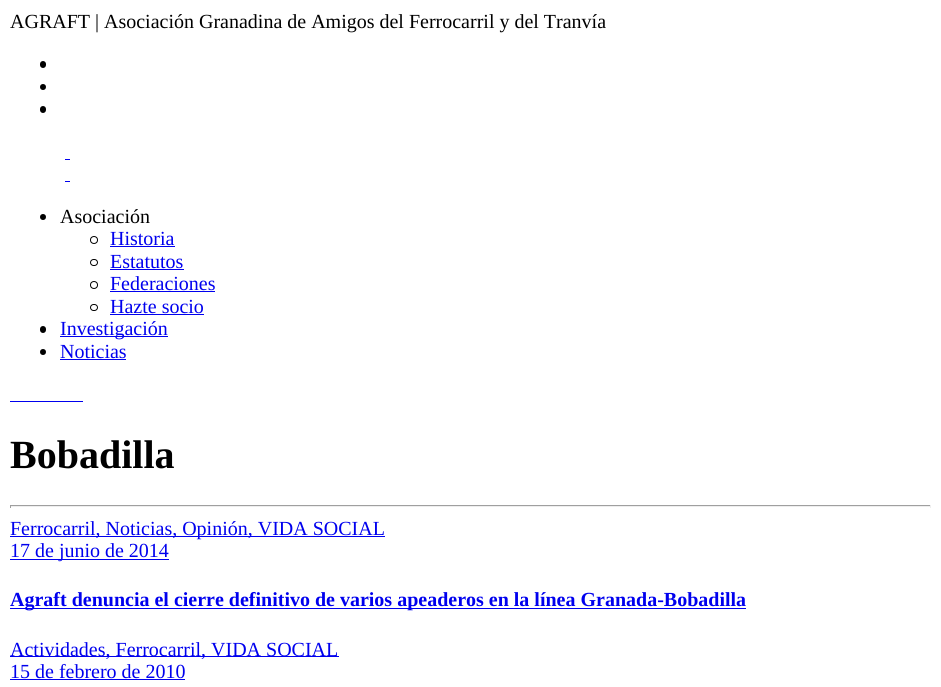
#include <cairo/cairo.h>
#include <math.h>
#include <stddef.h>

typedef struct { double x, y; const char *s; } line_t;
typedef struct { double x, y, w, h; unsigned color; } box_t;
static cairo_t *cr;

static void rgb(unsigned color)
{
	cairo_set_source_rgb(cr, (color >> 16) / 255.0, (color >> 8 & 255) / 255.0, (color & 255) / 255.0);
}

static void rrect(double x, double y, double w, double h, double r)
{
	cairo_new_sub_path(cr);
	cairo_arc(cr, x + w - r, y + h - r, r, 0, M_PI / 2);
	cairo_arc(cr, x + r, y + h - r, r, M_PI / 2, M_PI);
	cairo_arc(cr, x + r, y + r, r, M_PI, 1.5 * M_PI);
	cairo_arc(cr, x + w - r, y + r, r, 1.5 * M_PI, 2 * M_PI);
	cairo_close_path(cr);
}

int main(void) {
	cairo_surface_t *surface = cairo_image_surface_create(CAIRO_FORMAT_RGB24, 941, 687);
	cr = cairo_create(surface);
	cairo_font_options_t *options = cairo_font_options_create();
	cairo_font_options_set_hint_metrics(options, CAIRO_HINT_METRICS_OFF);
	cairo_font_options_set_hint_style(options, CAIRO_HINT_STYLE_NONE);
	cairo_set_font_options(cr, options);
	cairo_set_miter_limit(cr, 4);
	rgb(0xffffff);
	cairo_paint(cr);
	rgb(0x000000);
	rrect(40, 61, 6, 7, 3);
	cairo_fill(cr);
	cairo_arc(cr, 43, 87, 3, 0, 2 * M_PI);
	cairo_fill(cr);
	rrect(40, 106, 6, 7, 3);
	cairo_fill(cr);
	rgb(0x0000ee);
	cairo_rectangle(cr, 65, 159, 5, 1);
	cairo_fill(cr);
	cairo_rectangle(cr, 65, 181, 5, 1);
	cairo_fill(cr);
	rgb(0x000000);
	cairo_arc(cr, 43, 217, 3, 0, 2 * M_PI);
	cairo_fill(cr);
	cairo_arc(cr, 94, 240, 3.5, 0, 2 * M_PI);
	cairo_set_line_width(cr, 1);
	cairo_stroke(cr);
	rgb(0x0000ee);
	cairo_rectangle(cr, 110, 246, 65, 1);
	cairo_fill(cr);
	rrect(90.5, 259.5, 7, 6, 3);
	rgb(0x000000);
	cairo_stroke(cr);
	rgb(0x0000ee);
	cairo_rectangle(cr, 110, 269, 74, 1);
	cairo_fill(cr);
	cairo_arc(cr, 94, 285, 3.5, 0, 2 * M_PI);
	rgb(0x000000);
	cairo_stroke(cr);
	rgb(0x0000ee);
	cairo_rectangle(cr, 110, 291, 105, 1);
	cairo_fill(cr);
	rrect(90.5, 304.5, 7, 6, 3);
	rgb(0x000000);
	cairo_stroke(cr);
	rgb(0x0000ee);
	cairo_rectangle(cr, 110, 314, 94, 1);
	cairo_fill(cr);
	rgb(0x000000);
	rrect(40, 326, 6, 7, 3);
	cairo_fill(cr);
	rgb(0x0000ee);
	cairo_rectangle(cr, 60, 336, 108, 1);
	cairo_fill(cr);
	rgb(0x000000);
	cairo_arc(cr, 43, 352, 3, 0, 2 * M_PI);
	cairo_fill(cr);
	{
		static const box_t items[] = {
			{60, 359, 66, 1, 0x0000ee},
			{10, 401, 73, 1, 0x0000ee},
			{10, 505, 921, 1, 0x9f9f9f},
			{930, 505, 1, 3, 0xeeeeee},
			{10, 506, 921, 1, 0xeeeeee},
			{10, 505, 1, 3, 0x9f9f9f},
			{10, 536, 375, 1, 0x0000ee},
			{10, 559, 159, 1, 0x0000ee},
			{10, 608, 736, 1, 0x0000ee},
			{10, 656, 329, 1, 0x0000ee},
			{10, 679, 175, 1, 0x0000ee},
		};
		for (size_t i = 0; i < sizeof items / sizeof *items; i++) {
			rgb(items[i].color);
			cairo_rectangle(cr, items[i].x, items[i].y, items[i].w, items[i].h);
			cairo_fill(cr);
		}
	}
	cairo_select_font_face(cr, "Liberation Serif", CAIRO_FONT_SLANT_NORMAL, CAIRO_FONT_WEIGHT_NORMAL);
	cairo_set_font_size(cr, 20);
	rgb(0x000000);
	cairo_move_to(cr, 10, 28);
	cairo_show_text(cr, "AGRAFT | Asociación Granadina de Amigos del Ferrocarril y del Tranvía");
	cairo_move_to(cr, 60, 223);
	cairo_show_text(cr, "Asociación");
	rgb(0x0000ee);
	{
		static const line_t items[] = {
			{110, 245, "Historia"},
			{110, 268, "Estatutos"},
			{110, 290, "Federaciones"},
			{110, 313, "Hazte socio"},
			{60, 335, "Investigación"},
			{60, 358, "Noticias"},
		};
		for (size_t i = 0; i < sizeof items / sizeof *items; i++) {
			cairo_move_to(cr, items[i].x, items[i].y);
			cairo_show_text(cr, items[i].s);
		}
	}
	cairo_select_font_face(cr, "Liberation Serif", CAIRO_FONT_SLANT_NORMAL, CAIRO_FONT_WEIGHT_BOLD);
	cairo_set_font_size(cr, 40);
	rgb(0x000000);
	cairo_move_to(cr, 10, 468);
	cairo_show_text(cr, "Bobadilla");
	cairo_select_font_face(cr, "Liberation Serif", CAIRO_FONT_SLANT_NORMAL, CAIRO_FONT_WEIGHT_NORMAL);
	cairo_set_font_size(cr, 20);
	rgb(0x0000ee);
	cairo_move_to(cr, 10, 535);
	cairo_show_text(cr, "Ferrocarril, Noticias, Opinión, VIDA SOCIAL");
	cairo_move_to(cr, 10, 557);
	cairo_show_text(cr, "17 de junio de 2014");
	cairo_select_font_face(cr, "Liberation Serif", CAIRO_FONT_SLANT_NORMAL, CAIRO_FONT_WEIGHT_BOLD);
	cairo_move_to(cr, 10, 606);
	cairo_show_text(cr, "Agraft denuncia el cierre definitivo de varios apeaderos en la línea Granada-Bobadilla");
	cairo_select_font_face(cr, "Liberation Serif", CAIRO_FONT_SLANT_NORMAL, CAIRO_FONT_WEIGHT_NORMAL);
	cairo_move_to(cr, 10, 656);
	cairo_show_text(cr, "Actividades, Ferrocarril, VIDA SOCIAL");
	cairo_move_to(cr, 10, 678);
	cairo_show_text(cr, "15 de febrero de 2010");
	cairo_surface_write_to_png(surface, "page.png");
	cairo_font_options_destroy(options);
	cairo_destroy(cr);
	cairo_surface_destroy(surface);
	return 0;
}
